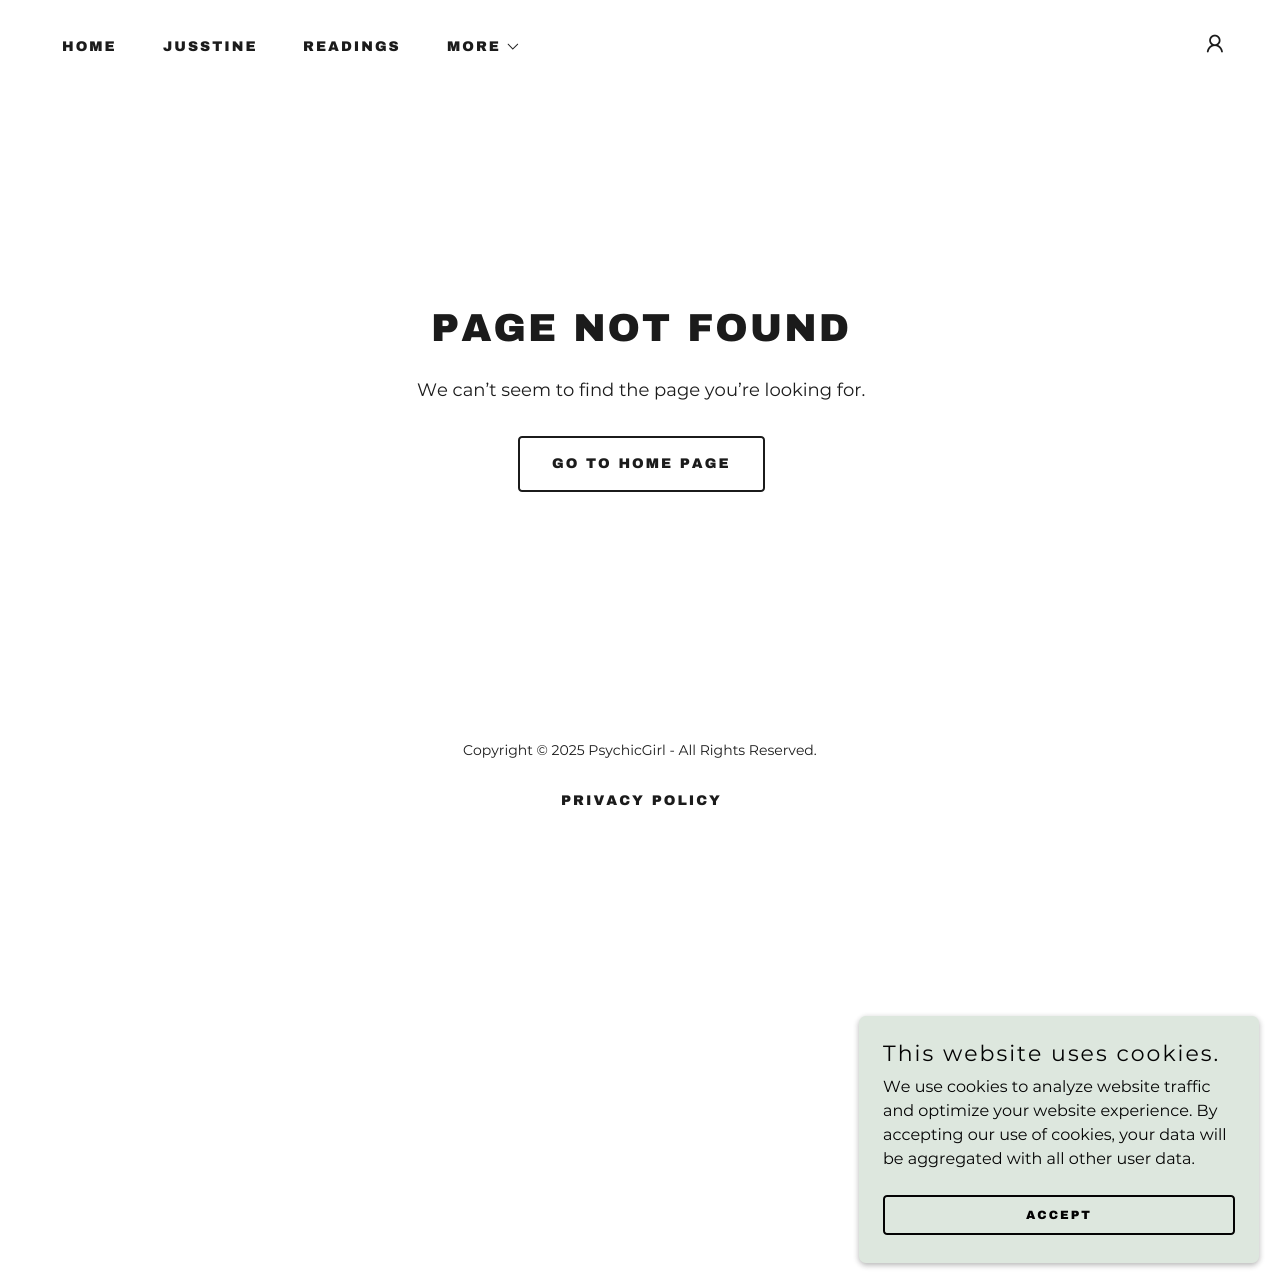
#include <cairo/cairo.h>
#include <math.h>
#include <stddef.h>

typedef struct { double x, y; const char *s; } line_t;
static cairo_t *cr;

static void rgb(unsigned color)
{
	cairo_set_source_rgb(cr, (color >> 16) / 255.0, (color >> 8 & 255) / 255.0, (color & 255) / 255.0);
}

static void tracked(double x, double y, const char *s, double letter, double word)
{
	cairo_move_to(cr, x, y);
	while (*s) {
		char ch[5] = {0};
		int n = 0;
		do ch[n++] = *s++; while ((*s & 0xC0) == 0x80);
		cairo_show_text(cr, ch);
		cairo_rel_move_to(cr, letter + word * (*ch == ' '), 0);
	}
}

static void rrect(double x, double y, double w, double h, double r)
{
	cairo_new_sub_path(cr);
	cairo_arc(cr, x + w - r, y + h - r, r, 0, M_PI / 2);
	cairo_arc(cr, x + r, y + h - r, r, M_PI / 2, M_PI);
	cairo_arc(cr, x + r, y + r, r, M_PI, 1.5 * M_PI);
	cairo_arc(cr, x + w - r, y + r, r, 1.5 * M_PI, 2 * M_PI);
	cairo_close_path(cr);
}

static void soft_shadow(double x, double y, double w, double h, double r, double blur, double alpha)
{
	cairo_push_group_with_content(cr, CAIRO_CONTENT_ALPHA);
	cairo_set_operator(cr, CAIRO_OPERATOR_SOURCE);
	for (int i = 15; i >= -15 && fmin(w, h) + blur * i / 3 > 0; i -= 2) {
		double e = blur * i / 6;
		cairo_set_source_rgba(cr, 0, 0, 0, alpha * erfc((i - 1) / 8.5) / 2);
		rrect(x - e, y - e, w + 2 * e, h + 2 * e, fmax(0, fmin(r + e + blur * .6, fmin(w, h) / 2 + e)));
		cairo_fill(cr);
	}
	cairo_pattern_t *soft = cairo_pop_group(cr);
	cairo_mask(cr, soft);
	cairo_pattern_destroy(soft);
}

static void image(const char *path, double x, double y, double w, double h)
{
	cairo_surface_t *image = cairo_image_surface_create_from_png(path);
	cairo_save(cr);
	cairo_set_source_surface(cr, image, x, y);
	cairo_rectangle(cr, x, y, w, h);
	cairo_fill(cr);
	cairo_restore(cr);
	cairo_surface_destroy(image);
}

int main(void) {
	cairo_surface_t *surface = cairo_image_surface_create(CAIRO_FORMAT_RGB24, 1283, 1287);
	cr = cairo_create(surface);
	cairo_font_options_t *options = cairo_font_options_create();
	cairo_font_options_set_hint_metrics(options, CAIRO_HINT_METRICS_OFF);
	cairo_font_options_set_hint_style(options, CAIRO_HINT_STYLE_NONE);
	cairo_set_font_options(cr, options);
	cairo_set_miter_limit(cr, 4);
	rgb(0xffffff);
	cairo_paint(cr);
	image("img/1.png", 507, 43, 12, 7);
	image("img/2.png", 1206, 34, 17, 19);
	rrect(519, 437, 245, 54, 3);
	rgb(0x1b1b1b);
	cairo_stroke(cr);
	rgb(0x000000);
	soft_shadow(859, 1018, 400, 247, 7, 3, 0.3);
	rgb(0xdde7de);
	rrect(859, 1016, 400, 247, 7);
	cairo_fill(cr);
	rrect(884, 1196, 350, 38, 3);
	rgb(0x030303);
	cairo_stroke(cr);
	cairo_select_font_face(cr, "Archivo Black Black", CAIRO_FONT_SLANT_NORMAL, CAIRO_FONT_WEIGHT_NORMAL);
	cairo_set_font_size(cr, 14);
	rgb(0x1b1b1b);
	{
		static const line_t items[] = {
			{62, 51, "HOME"},
			{163, 51, "JUSSTINE"},
			{303, 51, "READINGS"},
			{447, 51, "MORE"},
		};
		for (size_t i = 0; i < sizeof items / sizeof *items; i++) {
			tracked(items[i].x, items[i].y, items[i].s, 2, 0);
		}
	}
	cairo_set_font_size(cr, 39);
	tracked(431, 341, "PAGE NOT FOUND", 2, 0);
	cairo_select_font_face(cr, "Montserrat", CAIRO_FONT_SLANT_NORMAL, CAIRO_FONT_WEIGHT_NORMAL);
	cairo_set_font_size(cr, 18);
	cairo_move_to(cr, 417, 396);
	cairo_show_text(cr, "We can’t seem to find the page you’re looking for.");
	cairo_select_font_face(cr, "Archivo Black Black", CAIRO_FONT_SLANT_NORMAL, CAIRO_FONT_WEIGHT_NORMAL);
	cairo_set_font_size(cr, 14);
	tracked(552, 468, "GO TO HOME PAGE", 2, 0);
	cairo_select_font_face(cr, "Montserrat", CAIRO_FONT_SLANT_NORMAL, CAIRO_FONT_WEIGHT_NORMAL);
	cairo_move_to(cr, 463, 755);
	cairo_show_text(cr, "Copyright © 2025 PsychicGirl - All Rights Reserved.");
	cairo_select_font_face(cr, "Archivo Black Black", CAIRO_FONT_SLANT_NORMAL, CAIRO_FONT_WEIGHT_NORMAL);
	tracked(561, 805, "PRIVACY POLICY", 2, 0);
	cairo_select_font_face(cr, "Montserrat", CAIRO_FONT_SLANT_NORMAL, CAIRO_FONT_WEIGHT_NORMAL);
	cairo_set_font_size(cr, 22);
	rgb(0x030303);
	tracked(883, 1061, "This website uses cookies.", 2, 0);
	cairo_set_font_size(cr, 16);
	{
		static const line_t items[] = {
			{883, 1092, "We use cookies to analyze website traffic"},
			{883, 1116, "and optimize your website experience. By"},
			{883, 1140, "accepting our use of cookies, your data will"},
			{883, 1164, "be aggregated with all other user data."},
		};
		for (size_t i = 0; i < sizeof items / sizeof *items; i++) {
			cairo_move_to(cr, items[i].x, items[i].y);
			cairo_show_text(cr, items[i].s);
		}
	}
	cairo_select_font_face(cr, "Archivo Black Black", CAIRO_FONT_SLANT_NORMAL, CAIRO_FONT_WEIGHT_NORMAL);
	cairo_set_font_size(cr, 12);
	tracked(1026, 1219, "ACCEPT", 2, 0);
	cairo_surface_write_to_png(surface, "page.png");
	cairo_font_options_destroy(options);
	cairo_destroy(cr);
	cairo_surface_destroy(surface);
	return 0;
}
